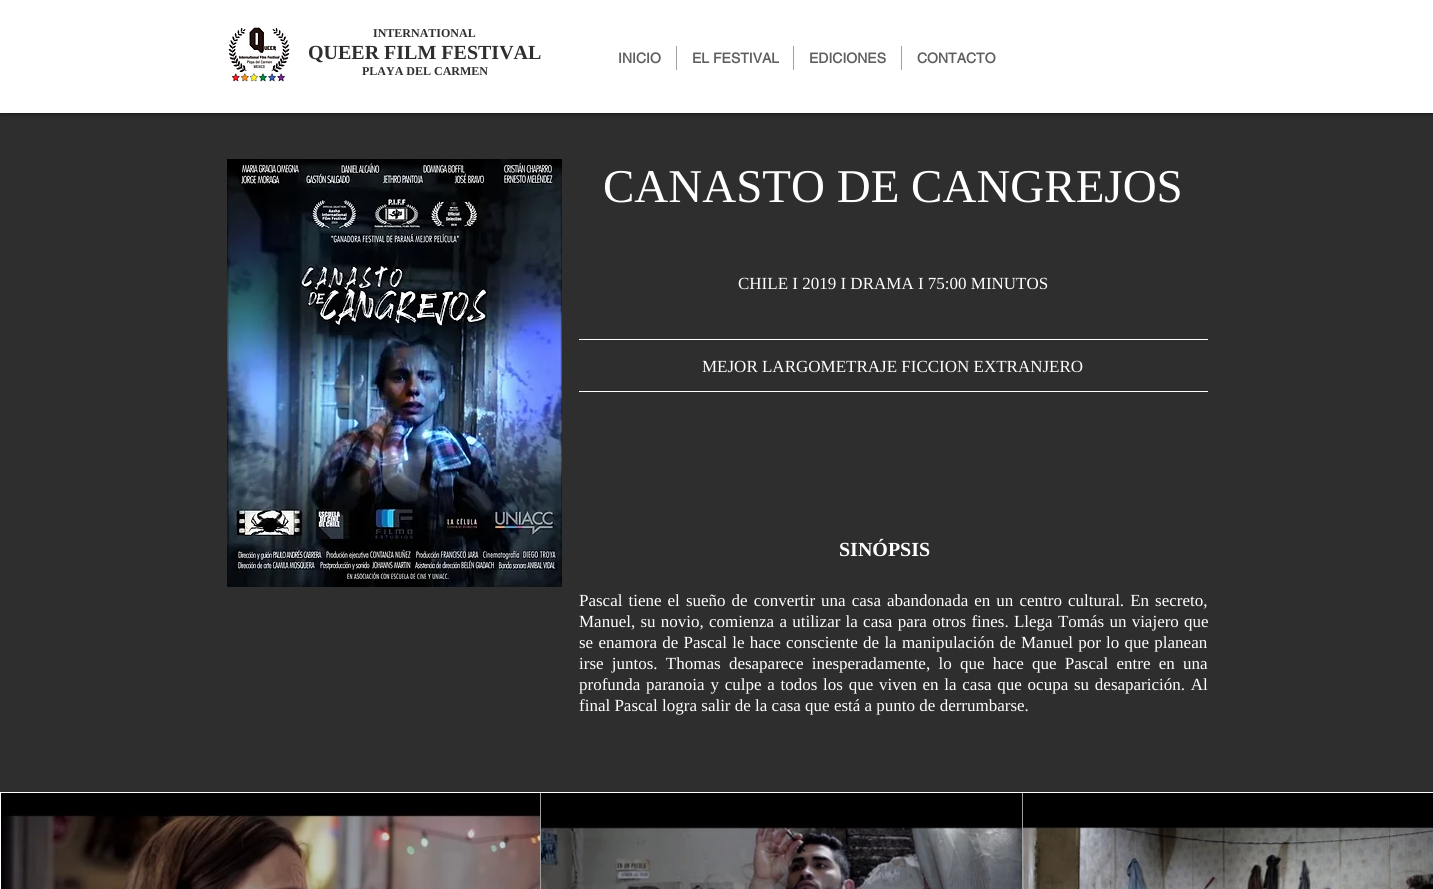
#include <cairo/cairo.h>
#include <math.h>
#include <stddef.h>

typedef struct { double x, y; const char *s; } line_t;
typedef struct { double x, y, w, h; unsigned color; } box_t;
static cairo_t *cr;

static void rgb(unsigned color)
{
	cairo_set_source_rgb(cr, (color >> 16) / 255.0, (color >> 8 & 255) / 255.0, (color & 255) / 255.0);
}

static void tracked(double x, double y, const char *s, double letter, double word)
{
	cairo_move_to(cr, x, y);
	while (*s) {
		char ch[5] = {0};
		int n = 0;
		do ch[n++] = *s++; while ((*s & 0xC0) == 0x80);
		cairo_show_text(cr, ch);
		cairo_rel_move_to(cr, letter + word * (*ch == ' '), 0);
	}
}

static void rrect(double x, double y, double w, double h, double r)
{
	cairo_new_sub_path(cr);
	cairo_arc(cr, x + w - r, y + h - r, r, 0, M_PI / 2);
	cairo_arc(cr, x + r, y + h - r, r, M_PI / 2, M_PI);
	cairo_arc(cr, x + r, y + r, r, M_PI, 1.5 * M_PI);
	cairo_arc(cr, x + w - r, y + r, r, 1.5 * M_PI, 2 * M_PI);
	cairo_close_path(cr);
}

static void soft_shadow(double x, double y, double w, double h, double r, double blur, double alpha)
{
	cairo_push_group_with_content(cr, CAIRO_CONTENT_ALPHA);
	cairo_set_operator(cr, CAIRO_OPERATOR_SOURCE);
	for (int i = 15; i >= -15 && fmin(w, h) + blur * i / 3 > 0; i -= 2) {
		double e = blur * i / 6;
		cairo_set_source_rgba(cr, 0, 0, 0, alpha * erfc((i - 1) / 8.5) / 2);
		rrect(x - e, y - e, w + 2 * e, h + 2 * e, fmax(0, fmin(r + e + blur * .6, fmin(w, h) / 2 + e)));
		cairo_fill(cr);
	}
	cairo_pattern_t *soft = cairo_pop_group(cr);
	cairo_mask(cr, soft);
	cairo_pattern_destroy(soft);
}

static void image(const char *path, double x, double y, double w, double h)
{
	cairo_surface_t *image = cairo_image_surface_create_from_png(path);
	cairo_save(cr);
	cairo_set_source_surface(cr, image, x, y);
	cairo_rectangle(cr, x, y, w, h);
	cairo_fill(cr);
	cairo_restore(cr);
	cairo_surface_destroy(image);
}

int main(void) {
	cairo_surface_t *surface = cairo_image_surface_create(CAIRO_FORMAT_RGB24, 1433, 889);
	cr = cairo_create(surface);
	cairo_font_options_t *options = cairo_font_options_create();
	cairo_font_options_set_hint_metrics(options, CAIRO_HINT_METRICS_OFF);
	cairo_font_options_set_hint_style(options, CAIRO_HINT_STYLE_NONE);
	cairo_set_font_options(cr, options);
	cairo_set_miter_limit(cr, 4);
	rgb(0xffffff);
	cairo_paint(cr);
	rgb(0x2f2e2e);
	cairo_rectangle(cr, 0, 113, 1433, 679);
	cairo_fill(cr);
	cairo_save(cr);
	cairo_rectangle(cr, 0, 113, 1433, 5);
	cairo_clip(cr);
	rgb(0x000000);
	soft_shadow(0, 0, 1433, 113, 0, 2.5, 0.7);
	cairo_restore(cr);
	image("img/1.png", 228, 27, 62, 55);
	{
		static const box_t items[] = {
			{676, 46, 1, 24, 0xa0a09f},
			{793, 46, 1, 24, 0xa0a09f},
			{901, 46, 1, 24, 0xa0a09f},
		};
		for (size_t i = 0; i < sizeof items / sizeof *items; i++) {
			rgb(items[i].color);
			cairo_rectangle(cr, items[i].x, items[i].y, items[i].w, items[i].h);
			cairo_fill(cr);
		}
	}
	image("img/2.png", 227, 159, 335, 428);
	rgb(0xffffff);
	cairo_rectangle(cr, 579, 339, 629, 1);
	cairo_fill(cr);
	cairo_rectangle(cr, 579, 391, 629, 1);
	cairo_fill(cr);
	image("img/3.png", 1, 793, 539, 96);
	rgb(0xa0a09f);
	cairo_rectangle(cr, 540, 793, 1, 96);
	cairo_fill(cr);
	image("img/4.png", 541, 793, 481, 96);
	cairo_rectangle(cr, 1022, 793, 1, 96);
	cairo_fill(cr);
	image("img/5.png", 1023, 793, 410, 96);
	cairo_select_font_face(cr, "Liberation Serif", CAIRO_FONT_SLANT_NORMAL, CAIRO_FONT_WEIGHT_BOLD);
	cairo_set_font_size(cr, 12);
	rgb(0x2f2e2e);
	cairo_move_to(cr, 373, 37);
	cairo_show_text(cr, "INTERNATIONAL");
	cairo_set_font_size(cr, 20);
	cairo_move_to(cr, 308, 59);
	cairo_show_text(cr, "QUEER FILM FESTIVAL");
	cairo_set_font_size(cr, 12);
	cairo_move_to(cr, 362, 75);
	cairo_show_text(cr, "PLAYA DEL CARMEN");
	cairo_select_font_face(cr, "helvetica", CAIRO_FONT_SLANT_NORMAL, CAIRO_FONT_WEIGHT_BOLD);
	cairo_set_font_size(cr, 14);
	rgb(0x605e5e);
	{
		static const line_t items[] = {
			{618, 63, "INICIO"},
			{692, 63, "EL FESTIVAL"},
			{809, 63, "EDICIONES"},
			{917, 63, "CONTACTO"},
		};
		for (size_t i = 0; i < sizeof items / sizeof *items; i++) {
			cairo_move_to(cr, items[i].x, items[i].y);
			cairo_show_text(cr, items[i].s);
		}
	}
	cairo_select_font_face(cr, "Liberation Serif", CAIRO_FONT_SLANT_NORMAL, CAIRO_FONT_WEIGHT_NORMAL);
	cairo_set_font_size(cr, 47);
	rgb(0xffffff);
	cairo_move_to(cr, 603, 202);
	cairo_show_text(cr, "CANASTO DE CANGREJOS");
	cairo_set_font_size(cr, 17);
	cairo_move_to(cr, 738, 289);
	cairo_show_text(cr, "CHILE I 2019 I DRAMA I 75:00 MINUTOS");
	cairo_move_to(cr, 702, 372);
	cairo_show_text(cr, "MEJOR LARGOMETRAJE FICCION EXTRANJERO");
	cairo_select_font_face(cr, "Liberation Serif", CAIRO_FONT_SLANT_NORMAL, CAIRO_FONT_WEIGHT_BOLD);
	cairo_set_font_size(cr, 20);
	cairo_move_to(cr, 839, 556);
	cairo_show_text(cr, "SINÓPSIS");
	cairo_select_font_face(cr, "Liberation Serif", CAIRO_FONT_SLANT_NORMAL, CAIRO_FONT_WEIGHT_NORMAL);
	cairo_set_font_size(cr, 17);
	tracked(579, 606, "Pascal tiene el sueño de convertir una casa abandonada en un centro cultural. En secreto,", 0, 1.8);
	tracked(579, 627, "Manuel, su novio, comienza a utilizar la casa para otros fines. Llega Tomás un viajero que", 0, 1);
	tracked(579, 648, "se enamora de Pascal le hace consciente de la manipulación de Manuel por lo que planean", 0, 1);
	tracked(579, 669, "irse juntos. Thomas desaparece inesperadamente, lo que hace que Pascal entre en una", 0, 4);
	tracked(579, 690, "profunda paranoia y culpe a todos los que viven en la casa que ocupa su desaparición. Al", 0, 1.5);
	cairo_move_to(cr, 579, 711);
	cairo_show_text(cr, "final Pascal logra salir de la casa que está a punto de derrumbarse.");
	cairo_surface_write_to_png(surface, "page.png");
	cairo_font_options_destroy(options);
	cairo_destroy(cr);
	cairo_surface_destroy(surface);
	return 0;
}
